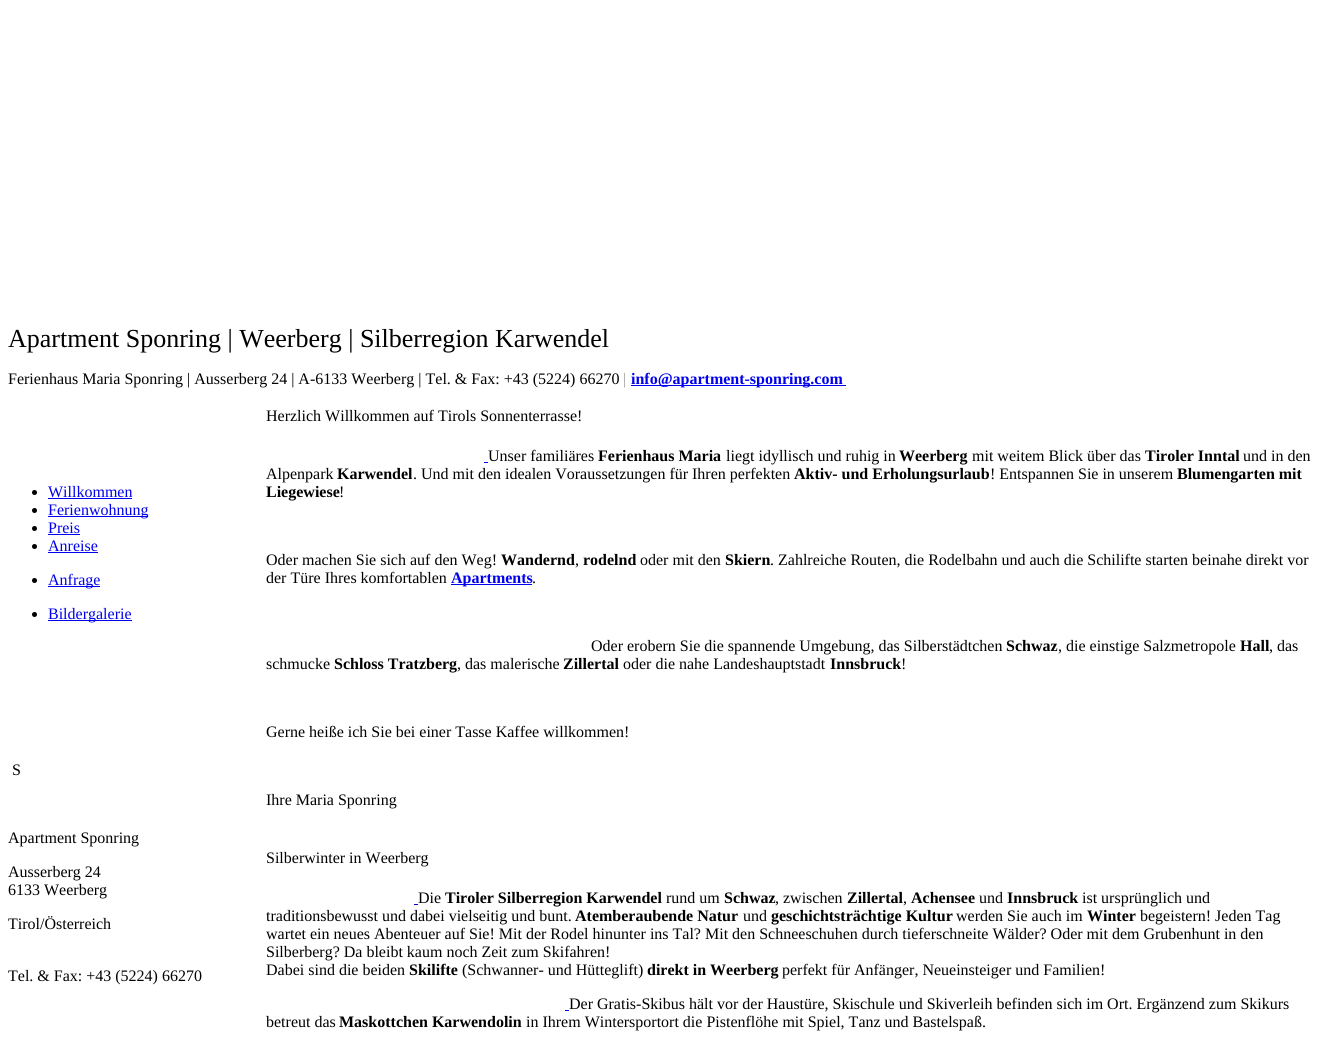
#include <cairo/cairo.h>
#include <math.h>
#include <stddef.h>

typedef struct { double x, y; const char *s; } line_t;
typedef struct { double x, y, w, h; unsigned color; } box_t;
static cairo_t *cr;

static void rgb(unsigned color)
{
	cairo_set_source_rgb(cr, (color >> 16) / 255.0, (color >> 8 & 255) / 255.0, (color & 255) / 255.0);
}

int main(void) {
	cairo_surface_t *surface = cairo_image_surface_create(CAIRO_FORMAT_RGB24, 1329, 1040);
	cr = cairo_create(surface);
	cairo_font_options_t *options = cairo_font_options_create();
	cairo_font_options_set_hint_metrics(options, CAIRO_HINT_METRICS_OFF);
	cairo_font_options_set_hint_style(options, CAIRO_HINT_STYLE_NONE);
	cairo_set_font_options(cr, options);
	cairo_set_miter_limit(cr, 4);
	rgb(0xffffff);
	cairo_paint(cr);
	rgb(0x0000ee);
	cairo_rectangle(cr, 631, 385, 211, 1);
	cairo_fill(cr);
	cairo_rectangle(cr, 842, 385, 4, 1);
	cairo_fill(cr);
	rgb(0x000000);
	cairo_arc(cr, 34.5, 492.5, 2.5, 0, 2 * M_PI);
	cairo_fill(cr);
	rgb(0x0000ee);
	cairo_rectangle(cr, 48, 498, 84, 1);
	cairo_fill(cr);
	rgb(0x000000);
	cairo_arc(cr, 34.5, 510.5, 2.5, 0, 2 * M_PI);
	cairo_fill(cr);
	rgb(0x0000ee);
	cairo_rectangle(cr, 48, 516, 100, 1);
	cairo_fill(cr);
	rgb(0x000000);
	cairo_arc(cr, 34.5, 528.5, 2.5, 0, 2 * M_PI);
	cairo_fill(cr);
	rgb(0x0000ee);
	cairo_rectangle(cr, 48, 534, 32, 1);
	cairo_fill(cr);
	rgb(0x000000);
	cairo_arc(cr, 34.5, 546.5, 2.5, 0, 2 * M_PI);
	cairo_fill(cr);
	rgb(0x0000ee);
	cairo_rectangle(cr, 48, 552, 50, 1);
	cairo_fill(cr);
	rgb(0x000000);
	cairo_arc(cr, 34.5, 580.5, 2.5, 0, 2 * M_PI);
	cairo_fill(cr);
	rgb(0x0000ee);
	cairo_rectangle(cr, 48, 586, 52, 1);
	cairo_fill(cr);
	rgb(0x000000);
	cairo_arc(cr, 34.5, 614.5, 2.5, 0, 2 * M_PI);
	cairo_fill(cr);
	{
		static const box_t items[] = {
			{48, 620, 84, 1, 0x0000ee},
			{484, 462, 4, 1, 0x0000ee},
			{451, 584, 81, 1, 0x0000ee},
			{414, 904, 4, 1, 0x0000ee},
			{565, 1010, 4, 1, 0x0000ee},
		};
		for (size_t i = 0; i < sizeof items / sizeof *items; i++) {
			rgb(items[i].color);
			cairo_rectangle(cr, items[i].x, items[i].y, items[i].w, items[i].h);
			cairo_fill(cr);
		}
	}
	cairo_select_font_face(cr, "Liberation Serif", CAIRO_FONT_SLANT_NORMAL, CAIRO_FONT_WEIGHT_NORMAL);
	cairo_set_font_size(cr, 26);
	rgb(0x000000);
	cairo_move_to(cr, 8, 347);
	cairo_show_text(cr, "Apartment Sponring | Weerberg | Silberregion Karwendel");
	cairo_set_font_size(cr, 16);
	cairo_move_to(cr, 8, 384);
	cairo_show_text(cr, "Ferienhaus Maria Sponring | Ausserberg 24 | A-6133 Weerberg | Tel. & Fax: +43 (5224) 66270 |");
	cairo_select_font_face(cr, "Liberation Serif", CAIRO_FONT_SLANT_NORMAL, CAIRO_FONT_WEIGHT_BOLD);
	rgb(0x0000ee);
	cairo_move_to(cr, 631, 384);
	cairo_show_text(cr, "info@apartment-sponring.com");
	cairo_select_font_face(cr, "Liberation Serif", CAIRO_FONT_SLANT_NORMAL, CAIRO_FONT_WEIGHT_NORMAL);
	{
		static const line_t items[] = {
			{48, 497, "Willkommen"},
			{48, 515, "Ferienwohnung"},
			{48, 533, "Preis"},
			{48, 551, "Anreise"},
			{48, 585, "Anfrage"},
			{48, 619, "Bildergalerie"},
		};
		for (size_t i = 0; i < sizeof items / sizeof *items; i++) {
			cairo_move_to(cr, items[i].x, items[i].y);
			cairo_show_text(cr, items[i].s);
		}
	}
	rgb(0x000000);
	{
		static const line_t items[] = {
			{12, 775, "S"},
			{8, 843, "Apartment Sponring"},
			{8, 877, "Ausserberg 24"},
			{8, 895, "6133 Weerberg"},
			{8, 929, "Tirol/Österreich"},
			{8, 981, "Tel. & Fax: +43 (5224) 66270"},
			{266, 421, "Herzlich Willkommen auf Tirols Sonnenterrasse!"},
			{488, 461, "Unser familiäres"},
		};
		for (size_t i = 0; i < sizeof items / sizeof *items; i++) {
			cairo_move_to(cr, items[i].x, items[i].y);
			cairo_show_text(cr, items[i].s);
		}
	}
	cairo_select_font_face(cr, "Liberation Serif", CAIRO_FONT_SLANT_NORMAL, CAIRO_FONT_WEIGHT_BOLD);
	cairo_move_to(cr, 598, 461);
	cairo_show_text(cr, "Ferienhaus Maria");
	cairo_select_font_face(cr, "Liberation Serif", CAIRO_FONT_SLANT_NORMAL, CAIRO_FONT_WEIGHT_NORMAL);
	cairo_move_to(cr, 726, 461);
	cairo_show_text(cr, "liegt idyllisch und ruhig in");
	cairo_select_font_face(cr, "Liberation Serif", CAIRO_FONT_SLANT_NORMAL, CAIRO_FONT_WEIGHT_BOLD);
	cairo_move_to(cr, 899, 461);
	cairo_show_text(cr, "Weerberg");
	cairo_select_font_face(cr, "Liberation Serif", CAIRO_FONT_SLANT_NORMAL, CAIRO_FONT_WEIGHT_NORMAL);
	cairo_move_to(cr, 972, 461);
	cairo_show_text(cr, "mit weitem Blick über das");
	cairo_select_font_face(cr, "Liberation Serif", CAIRO_FONT_SLANT_NORMAL, CAIRO_FONT_WEIGHT_BOLD);
	cairo_move_to(cr, 1145, 461);
	cairo_show_text(cr, "Tiroler Inntal");
	cairo_select_font_face(cr, "Liberation Serif", CAIRO_FONT_SLANT_NORMAL, CAIRO_FONT_WEIGHT_NORMAL);
	cairo_move_to(cr, 1243, 461);
	cairo_show_text(cr, "und in den");
	cairo_move_to(cr, 266, 479);
	cairo_show_text(cr, "Alpenpark");
	cairo_select_font_face(cr, "Liberation Serif", CAIRO_FONT_SLANT_NORMAL, CAIRO_FONT_WEIGHT_BOLD);
	cairo_move_to(cr, 337, 479);
	cairo_show_text(cr, "Karwendel");
	cairo_select_font_face(cr, "Liberation Serif", CAIRO_FONT_SLANT_NORMAL, CAIRO_FONT_WEIGHT_NORMAL);
	cairo_move_to(cr, 413, 479);
	cairo_show_text(cr, ". Und mit den idealen Voraussetzungen für Ihren perfekten");
	cairo_select_font_face(cr, "Liberation Serif", CAIRO_FONT_SLANT_NORMAL, CAIRO_FONT_WEIGHT_BOLD);
	cairo_move_to(cr, 794, 479);
	cairo_show_text(cr, "Aktiv- und Erholungsurlaub");
	cairo_select_font_face(cr, "Liberation Serif", CAIRO_FONT_SLANT_NORMAL, CAIRO_FONT_WEIGHT_NORMAL);
	cairo_move_to(cr, 990, 479);
	cairo_show_text(cr, "! Entspannen Sie in unserem");
	cairo_select_font_face(cr, "Liberation Serif", CAIRO_FONT_SLANT_NORMAL, CAIRO_FONT_WEIGHT_BOLD);
	cairo_move_to(cr, 1177, 479);
	cairo_show_text(cr, "Blumengarten mit");
	cairo_move_to(cr, 266, 497);
	cairo_show_text(cr, "Liegewiese");
	cairo_select_font_face(cr, "Liberation Serif", CAIRO_FONT_SLANT_NORMAL, CAIRO_FONT_WEIGHT_NORMAL);
	cairo_move_to(cr, 339, 497);
	cairo_show_text(cr, "!");
	cairo_move_to(cr, 266, 565);
	cairo_show_text(cr, "Oder machen Sie sich auf den Weg!");
	cairo_select_font_face(cr, "Liberation Serif", CAIRO_FONT_SLANT_NORMAL, CAIRO_FONT_WEIGHT_BOLD);
	cairo_move_to(cr, 501, 565);
	cairo_show_text(cr, "Wandernd");
	cairo_select_font_face(cr, "Liberation Serif", CAIRO_FONT_SLANT_NORMAL, CAIRO_FONT_WEIGHT_NORMAL);
	cairo_move_to(cr, 575, 565);
	cairo_show_text(cr, ",");
	cairo_select_font_face(cr, "Liberation Serif", CAIRO_FONT_SLANT_NORMAL, CAIRO_FONT_WEIGHT_BOLD);
	cairo_move_to(cr, 583, 565);
	cairo_show_text(cr, "rodelnd");
	cairo_select_font_face(cr, "Liberation Serif", CAIRO_FONT_SLANT_NORMAL, CAIRO_FONT_WEIGHT_NORMAL);
	cairo_move_to(cr, 640, 565);
	cairo_show_text(cr, "oder mit den");
	cairo_select_font_face(cr, "Liberation Serif", CAIRO_FONT_SLANT_NORMAL, CAIRO_FONT_WEIGHT_BOLD);
	cairo_move_to(cr, 725, 565);
	cairo_show_text(cr, "Skiern");
	cairo_select_font_face(cr, "Liberation Serif", CAIRO_FONT_SLANT_NORMAL, CAIRO_FONT_WEIGHT_NORMAL);
	cairo_move_to(cr, 770, 565);
	cairo_show_text(cr, ". Zahlreiche Routen, die Rodelbahn und auch die Schilifte starten beinahe direkt vor");
	cairo_move_to(cr, 266, 583);
	cairo_show_text(cr, "der Türe Ihres komfortablen");
	cairo_select_font_face(cr, "Liberation Serif", CAIRO_FONT_SLANT_NORMAL, CAIRO_FONT_WEIGHT_BOLD);
	rgb(0x0000ee);
	cairo_move_to(cr, 451, 583);
	cairo_show_text(cr, "Apartments");
	cairo_select_font_face(cr, "Liberation Serif", CAIRO_FONT_SLANT_NORMAL, CAIRO_FONT_WEIGHT_NORMAL);
	rgb(0x000000);
	cairo_move_to(cr, 532, 583);
	cairo_show_text(cr, ".");
	cairo_move_to(cr, 591, 651);
	cairo_show_text(cr, "Oder erobern Sie die spannende Umgebung, das Silberstädtchen");
	cairo_select_font_face(cr, "Liberation Serif", CAIRO_FONT_SLANT_NORMAL, CAIRO_FONT_WEIGHT_BOLD);
	cairo_move_to(cr, 1006, 651);
	cairo_show_text(cr, "Schwaz");
	cairo_select_font_face(cr, "Liberation Serif", CAIRO_FONT_SLANT_NORMAL, CAIRO_FONT_WEIGHT_NORMAL);
	cairo_move_to(cr, 1058, 651);
	cairo_show_text(cr, ", die einstige Salzmetropole");
	cairo_select_font_face(cr, "Liberation Serif", CAIRO_FONT_SLANT_NORMAL, CAIRO_FONT_WEIGHT_BOLD);
	cairo_move_to(cr, 1240, 651);
	cairo_show_text(cr, "Hall");
	cairo_select_font_face(cr, "Liberation Serif", CAIRO_FONT_SLANT_NORMAL, CAIRO_FONT_WEIGHT_NORMAL);
	cairo_move_to(cr, 1269, 651);
	cairo_show_text(cr, ", das");
	cairo_move_to(cr, 266, 669);
	cairo_show_text(cr, "schmucke");
	cairo_select_font_face(cr, "Liberation Serif", CAIRO_FONT_SLANT_NORMAL, CAIRO_FONT_WEIGHT_BOLD);
	cairo_move_to(cr, 334, 669);
	cairo_show_text(cr, "Schloss Tratzberg");
	cairo_select_font_face(cr, "Liberation Serif", CAIRO_FONT_SLANT_NORMAL, CAIRO_FONT_WEIGHT_NORMAL);
	cairo_move_to(cr, 457, 669);
	cairo_show_text(cr, ", das malerische");
	cairo_select_font_face(cr, "Liberation Serif", CAIRO_FONT_SLANT_NORMAL, CAIRO_FONT_WEIGHT_BOLD);
	cairo_move_to(cr, 563, 669);
	cairo_show_text(cr, "Zillertal");
	cairo_select_font_face(cr, "Liberation Serif", CAIRO_FONT_SLANT_NORMAL, CAIRO_FONT_WEIGHT_NORMAL);
	cairo_move_to(cr, 623, 669);
	cairo_show_text(cr, "oder die nahe Landeshauptstadt");
	cairo_select_font_face(cr, "Liberation Serif", CAIRO_FONT_SLANT_NORMAL, CAIRO_FONT_WEIGHT_BOLD);
	cairo_move_to(cr, 830, 669);
	cairo_show_text(cr, "Innsbruck");
	cairo_select_font_face(cr, "Liberation Serif", CAIRO_FONT_SLANT_NORMAL, CAIRO_FONT_WEIGHT_NORMAL);
	{
		static const line_t items[] = {
			{901, 669, "!"},
			{266, 737, "Gerne heiße ich Sie bei einer Tasse Kaffee willkommen!"},
			{266, 805, "Ihre Maria Sponring"},
			{266, 863, "Silberwinter in Weerberg"},
			{418, 903, "Die"},
		};
		for (size_t i = 0; i < sizeof items / sizeof *items; i++) {
			cairo_move_to(cr, items[i].x, items[i].y);
			cairo_show_text(cr, items[i].s);
		}
	}
	cairo_select_font_face(cr, "Liberation Serif", CAIRO_FONT_SLANT_NORMAL, CAIRO_FONT_WEIGHT_BOLD);
	cairo_move_to(cr, 445, 903);
	cairo_show_text(cr, "Tiroler Silberregion Karwendel");
	cairo_select_font_face(cr, "Liberation Serif", CAIRO_FONT_SLANT_NORMAL, CAIRO_FONT_WEIGHT_NORMAL);
	cairo_move_to(cr, 666, 903);
	cairo_show_text(cr, "rund um");
	cairo_select_font_face(cr, "Liberation Serif", CAIRO_FONT_SLANT_NORMAL, CAIRO_FONT_WEIGHT_BOLD);
	cairo_move_to(cr, 724, 903);
	cairo_show_text(cr, "Schwaz");
	cairo_select_font_face(cr, "Liberation Serif", CAIRO_FONT_SLANT_NORMAL, CAIRO_FONT_WEIGHT_NORMAL);
	cairo_move_to(cr, 775, 903);
	cairo_show_text(cr, ", zwischen");
	cairo_select_font_face(cr, "Liberation Serif", CAIRO_FONT_SLANT_NORMAL, CAIRO_FONT_WEIGHT_BOLD);
	cairo_move_to(cr, 847, 903);
	cairo_show_text(cr, "Zillertal");
	cairo_select_font_face(cr, "Liberation Serif", CAIRO_FONT_SLANT_NORMAL, CAIRO_FONT_WEIGHT_NORMAL);
	cairo_move_to(cr, 903, 903);
	cairo_show_text(cr, ",");
	cairo_select_font_face(cr, "Liberation Serif", CAIRO_FONT_SLANT_NORMAL, CAIRO_FONT_WEIGHT_BOLD);
	cairo_move_to(cr, 911, 903);
	cairo_show_text(cr, "Achensee");
	cairo_select_font_face(cr, "Liberation Serif", CAIRO_FONT_SLANT_NORMAL, CAIRO_FONT_WEIGHT_NORMAL);
	cairo_move_to(cr, 979, 903);
	cairo_show_text(cr, "und");
	cairo_select_font_face(cr, "Liberation Serif", CAIRO_FONT_SLANT_NORMAL, CAIRO_FONT_WEIGHT_BOLD);
	cairo_move_to(cr, 1007, 903);
	cairo_show_text(cr, "Innsbruck");
	cairo_select_font_face(cr, "Liberation Serif", CAIRO_FONT_SLANT_NORMAL, CAIRO_FONT_WEIGHT_NORMAL);
	cairo_move_to(cr, 1082, 903);
	cairo_show_text(cr, "ist ursprünglich und");
	cairo_move_to(cr, 266, 921);
	cairo_show_text(cr, "traditionsbewusst und dabei vielseitig und bunt.");
	cairo_select_font_face(cr, "Liberation Serif", CAIRO_FONT_SLANT_NORMAL, CAIRO_FONT_WEIGHT_BOLD);
	cairo_move_to(cr, 575, 921);
	cairo_show_text(cr, "Atemberaubende Natur");
	cairo_select_font_face(cr, "Liberation Serif", CAIRO_FONT_SLANT_NORMAL, CAIRO_FONT_WEIGHT_NORMAL);
	cairo_move_to(cr, 743, 921);
	cairo_show_text(cr, "und");
	cairo_select_font_face(cr, "Liberation Serif", CAIRO_FONT_SLANT_NORMAL, CAIRO_FONT_WEIGHT_BOLD);
	cairo_move_to(cr, 771, 921);
	cairo_show_text(cr, "geschichtsträchtige Kultur");
	cairo_select_font_face(cr, "Liberation Serif", CAIRO_FONT_SLANT_NORMAL, CAIRO_FONT_WEIGHT_NORMAL);
	cairo_move_to(cr, 956, 921);
	cairo_show_text(cr, "werden Sie auch im");
	cairo_select_font_face(cr, "Liberation Serif", CAIRO_FONT_SLANT_NORMAL, CAIRO_FONT_WEIGHT_BOLD);
	cairo_move_to(cr, 1087, 921);
	cairo_show_text(cr, "Winter");
	cairo_select_font_face(cr, "Liberation Serif", CAIRO_FONT_SLANT_NORMAL, CAIRO_FONT_WEIGHT_NORMAL);
	{
		static const line_t items[] = {
			{1140, 921, "begeistern! Jeden Tag"},
			{266, 939, "wartet ein neues Abenteuer auf Sie! Mit der Rodel hinunter ins Tal? Mit den Schneeschuhen durch tieferschneite Wälder? Oder mit dem Grubenhunt in den"},
			{266, 957, "Silberberg? Da bleibt kaum noch Zeit zum Skifahren!"},
			{266, 975, "Dabei sind die beiden"},
		};
		for (size_t i = 0; i < sizeof items / sizeof *items; i++) {
			cairo_move_to(cr, items[i].x, items[i].y);
			cairo_show_text(cr, items[i].s);
		}
	}
	cairo_select_font_face(cr, "Liberation Serif", CAIRO_FONT_SLANT_NORMAL, CAIRO_FONT_WEIGHT_BOLD);
	cairo_move_to(cr, 409, 975);
	cairo_show_text(cr, "Skilifte");
	cairo_select_font_face(cr, "Liberation Serif", CAIRO_FONT_SLANT_NORMAL, CAIRO_FONT_WEIGHT_NORMAL);
	cairo_move_to(cr, 462, 975);
	cairo_show_text(cr, "(Schwanner- und Hütteglift)");
	cairo_select_font_face(cr, "Liberation Serif", CAIRO_FONT_SLANT_NORMAL, CAIRO_FONT_WEIGHT_BOLD);
	cairo_move_to(cr, 647, 975);
	cairo_show_text(cr, "direkt in Weerberg");
	cairo_select_font_face(cr, "Liberation Serif", CAIRO_FONT_SLANT_NORMAL, CAIRO_FONT_WEIGHT_NORMAL);
	{
		static const line_t items[] = {
			{782, 975, "perfekt für Anfänger, Neueinsteiger und Familien!"},
			{569, 1009, "Der Gratis-Skibus hält vor der Haustüre, Skischule und Skiverleih befinden sich im Ort. Ergänzend zum Skikurs"},
			{266, 1027, "betreut das"},
		};
		for (size_t i = 0; i < sizeof items / sizeof *items; i++) {
			cairo_move_to(cr, items[i].x, items[i].y);
			cairo_show_text(cr, items[i].s);
		}
	}
	cairo_select_font_face(cr, "Liberation Serif", CAIRO_FONT_SLANT_NORMAL, CAIRO_FONT_WEIGHT_BOLD);
	cairo_move_to(cr, 339, 1027);
	cairo_show_text(cr, "Maskottchen Karwendolin");
	cairo_select_font_face(cr, "Liberation Serif", CAIRO_FONT_SLANT_NORMAL, CAIRO_FONT_WEIGHT_NORMAL);
	cairo_move_to(cr, 526, 1027);
	cairo_show_text(cr, "in Ihrem Wintersportort die Pistenflöhe mit Spiel, Tanz und Bastelspaß.");
	cairo_surface_write_to_png(surface, "page.png");
	cairo_font_options_destroy(options);
	cairo_destroy(cr);
	cairo_surface_destroy(surface);
	return 0;
}
